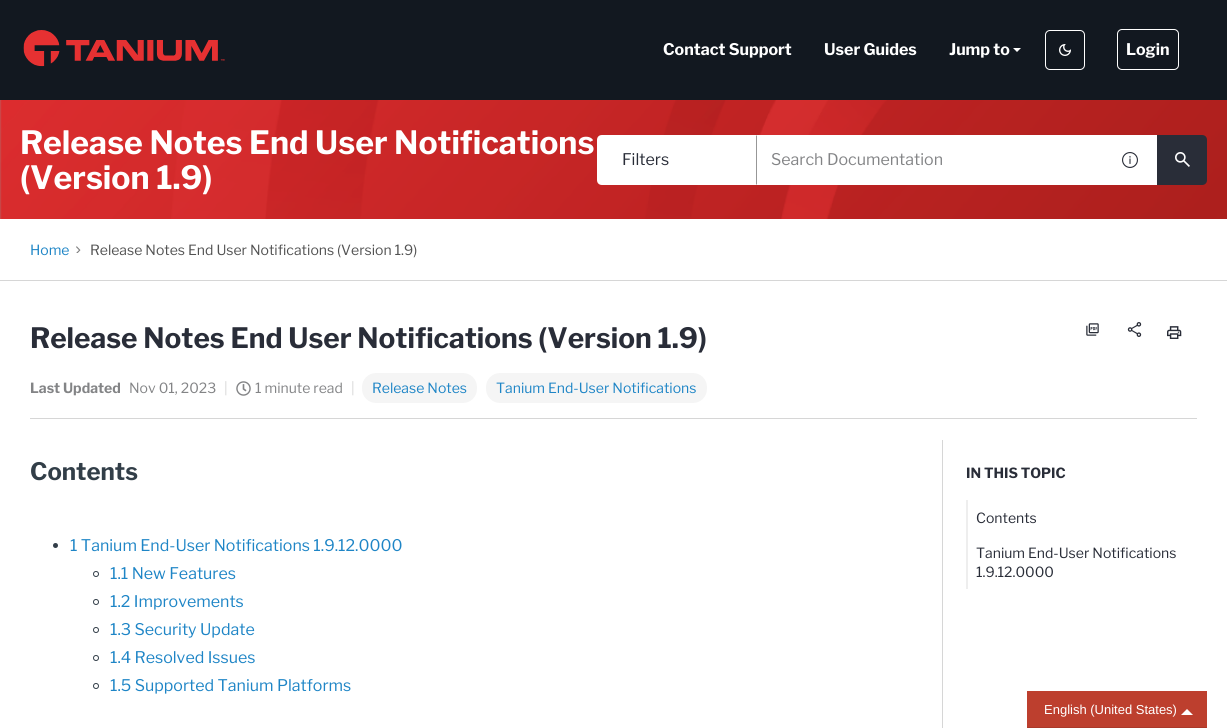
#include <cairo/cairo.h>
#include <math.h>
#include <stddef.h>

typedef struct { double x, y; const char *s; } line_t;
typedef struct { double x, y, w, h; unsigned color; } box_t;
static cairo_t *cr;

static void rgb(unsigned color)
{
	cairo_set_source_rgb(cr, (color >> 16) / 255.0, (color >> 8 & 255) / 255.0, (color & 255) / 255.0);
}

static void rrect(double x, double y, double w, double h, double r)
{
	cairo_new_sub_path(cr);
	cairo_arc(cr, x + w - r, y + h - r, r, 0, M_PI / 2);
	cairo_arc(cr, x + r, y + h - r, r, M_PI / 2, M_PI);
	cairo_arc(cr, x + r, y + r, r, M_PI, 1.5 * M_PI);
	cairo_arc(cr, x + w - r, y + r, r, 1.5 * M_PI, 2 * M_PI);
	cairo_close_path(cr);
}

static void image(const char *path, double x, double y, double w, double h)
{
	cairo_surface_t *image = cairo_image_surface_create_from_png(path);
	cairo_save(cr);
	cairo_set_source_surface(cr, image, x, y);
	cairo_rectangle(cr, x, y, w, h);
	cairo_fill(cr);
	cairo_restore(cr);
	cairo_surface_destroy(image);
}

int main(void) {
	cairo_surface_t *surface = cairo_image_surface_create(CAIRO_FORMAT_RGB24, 1227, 728);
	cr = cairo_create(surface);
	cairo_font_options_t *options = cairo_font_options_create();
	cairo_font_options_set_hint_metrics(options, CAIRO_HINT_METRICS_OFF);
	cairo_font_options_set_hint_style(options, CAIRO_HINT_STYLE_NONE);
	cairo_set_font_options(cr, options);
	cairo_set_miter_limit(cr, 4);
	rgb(0xffffff);
	cairo_paint(cr);
	rgb(0x121820);
	cairo_rectangle(cr, 0, 0, 1227, 100);
	cairo_fill(cr);
	image("img/1.png", 23, 30, 202, 37);
	rgb(0xffffff);
	cairo_new_path(cr);
	cairo_move_to(cr, 1013, 48);
	cairo_line_to(cr, 1021, 48);
	cairo_line_to(cr, 1017, 52);
	cairo_close_path(cr);
	cairo_fill(cr);
	rrect(1045.5, 30.5, 39, 39, 4.5);
	cairo_set_line_width(cr, 1);
	cairo_stroke(cr);
	image("img/2.png", 1059, 44, 12, 12);
	rrect(1117.5, 29.5, 61, 40, 4.5);
	cairo_stroke(cr);
	image("img/3.png", 0, 100, 1227, 119);
	cairo_new_path(cr);
	cairo_move_to(cr, 602, 135);
	cairo_line_to(cr, 757, 135);
	cairo_line_to(cr, 757, 185);
	cairo_line_to(cr, 602, 185);
	cairo_curve_to(cr, 599, 185, 597, 183, 597, 180);
	cairo_line_to(cr, 597, 140);
	cairo_curve_to(cr, 597, 137, 599, 135, 602, 135);
	cairo_close_path(cr);
	cairo_fill(cr);
	rgb(0x979797);
	cairo_new_path(cr);
	cairo_move_to(cr, 757, 135);
	cairo_line_to(cr, 756, 136);
	cairo_line_to(cr, 756, 184);
	cairo_line_to(cr, 757, 185);
	cairo_close_path(cr);
	cairo_fill(cr);
	rgb(0xffffff);
	cairo_rectangle(cr, 757, 135, 400, 50);
	cairo_fill(cr);
	image("img/4.png", 1122, 152, 16, 16);
	rgb(0x292d38);
	cairo_new_path(cr);
	cairo_move_to(cr, 1157, 135);
	cairo_line_to(cr, 1202, 135);
	cairo_curve_to(cr, 1205, 135, 1207, 137, 1207, 140);
	cairo_line_to(cr, 1207, 180);
	cairo_curve_to(cr, 1207, 183, 1205, 185, 1202, 185);
	cairo_line_to(cr, 1157, 185);
	cairo_close_path(cr);
	cairo_fill(cr);
	image("img/5.png", 1175, 152, 15, 15);
	rgb(0xd6d6d6);
	cairo_rectangle(cr, 0, 280, 1227, 1);
	cairo_fill(cr);
	image("img/6.png", 76, 246, 5, 7);
	cairo_rectangle(cr, 30, 418, 1167, 1);
	cairo_fill(cr);
	image("img/7.png", 1086, 323, 13, 13);
	image("img/8.png", 1127, 322, 15, 15);
	image("img/9.png", 1167, 326, 15, 13);
	image("img/10.png", 236, 381, 15, 15);
	rgb(0xf5f5f5);
	rrect(362, 373, 115, 30, 14);
	cairo_fill(cr);
	rrect(486, 373, 221, 30, 14);
	cairo_fill(cr);
	rgb(0x323e48);
	cairo_arc(cr, 55.5, 545.5, 2.5, 0, 2 * M_PI);
	cairo_fill(cr);
	cairo_arc(cr, 96, 574, 2.5, 0, 2 * M_PI);
	cairo_stroke(cr);
	cairo_arc(cr, 96, 602, 2.5, 0, 2 * M_PI);
	cairo_stroke(cr);
	cairo_arc(cr, 96, 630, 2.5, 0, 2 * M_PI);
	cairo_stroke(cr);
	cairo_arc(cr, 96, 658, 2.5, 0, 2 * M_PI);
	cairo_stroke(cr);
	cairo_arc(cr, 96, 686, 2.5, 0, 2 * M_PI);
	cairo_stroke(cr);
	{
		static const box_t items[] = {
			{942, 440, 1, 288, 0xd6d6d6},
			{966, 500, 2, 89, 0xeeeeee},
			{1027, 691, 180, 37, 0xbd3f2e},
		};
		for (size_t i = 0; i < sizeof items / sizeof *items; i++) {
			rgb(items[i].color);
			cairo_rectangle(cr, items[i].x, items[i].y, items[i].w, items[i].h);
			cairo_fill(cr);
		}
	}
	rgb(0xaa3929);
	cairo_new_path(cr);
	cairo_move_to(cr, 1207, 728);
	cairo_line_to(cr, 1027, 728);
	cairo_line_to(cr, 1028, 727);
	cairo_line_to(cr, 1206, 727);
	cairo_close_path(cr);
	cairo_fill(cr);
	rgb(0xffffff);
	cairo_new_path(cr);
	cairo_move_to(cr, 1193, 715);
	cairo_line_to(cr, 1181, 715);
	cairo_line_to(cr, 1187, 709);
	cairo_close_path(cr);
	cairo_fill(cr);
	cairo_select_font_face(cr, "Libre Franklin", CAIRO_FONT_SLANT_NORMAL, CAIRO_FONT_WEIGHT_BOLD);
	cairo_set_font_size(cr, 16);
	{
		static const line_t items[] = {
			{663, 55, "Contact Support"},
			{824, 55, "User Guides"},
			{949, 55, "Jump to"},
			{1126, 55, "Login"},
		};
		for (size_t i = 0; i < sizeof items / sizeof *items; i++) {
			cairo_move_to(cr, items[i].x, items[i].y);
			cairo_show_text(cr, items[i].s);
		}
	}
	cairo_set_font_size(cr, 32);
	cairo_move_to(cr, 20, 154);
	cairo_show_text(cr, "Release Notes End User Notifications");
	cairo_move_to(cr, 20, 189);
	cairo_show_text(cr, "(Version 1.9)");
	cairo_select_font_face(cr, "Libre Franklin", CAIRO_FONT_SLANT_NORMAL, CAIRO_FONT_WEIGHT_NORMAL);
	cairo_set_font_size(cr, 16);
	rgb(0x292d38);
	cairo_move_to(cr, 622, 165);
	cairo_show_text(cr, "Filters");
	rgb(0x838486);
	cairo_move_to(cr, 771, 165);
	cairo_show_text(cr, "Search Documentation");
	cairo_set_font_size(cr, 14);
	rgb(0x1e85c6);
	cairo_move_to(cr, 30, 255);
	cairo_show_text(cr, "Home");
	rgb(0x525252);
	cairo_move_to(cr, 90, 255);
	cairo_show_text(cr, "Release Notes End User Notifications (Version 1.9)");
	cairo_select_font_face(cr, "Libre Franklin", CAIRO_FONT_SLANT_NORMAL, CAIRO_FONT_WEIGHT_BOLD);
	cairo_set_font_size(cr, 28);
	rgb(0x292d38);
	cairo_move_to(cr, 30, 348);
	cairo_show_text(cr, "Release Notes End User Notifications (Version 1.9)");
	cairo_set_font_size(cr, 14);
	rgb(0x838486);
	cairo_move_to(cr, 30, 393);
	cairo_show_text(cr, "Last Updated");
	cairo_select_font_face(cr, "Libre Franklin", CAIRO_FONT_SLANT_NORMAL, CAIRO_FONT_WEIGHT_NORMAL);
	cairo_move_to(cr, 129, 393);
	cairo_show_text(cr, "Nov 01, 2023");
	rgb(0xd6d6d6);
	cairo_move_to(cr, 224, 393);
	cairo_show_text(cr, "|");
	rgb(0x838486);
	cairo_move_to(cr, 255, 393);
	cairo_show_text(cr, "1 minute read");
	rgb(0xd6d6d6);
	cairo_move_to(cr, 351, 393);
	cairo_show_text(cr, "|");
	rgb(0x1e85c6);
	cairo_move_to(cr, 372, 393);
	cairo_show_text(cr, "Release Notes");
	cairo_move_to(cr, 496, 393);
	cairo_show_text(cr, "Tanium End-User Notifications");
	cairo_select_font_face(cr, "Libre Franklin", CAIRO_FONT_SLANT_NORMAL, CAIRO_FONT_WEIGHT_BOLD);
	cairo_set_font_size(cr, 24);
	rgb(0x323e48);
	cairo_move_to(cr, 30, 480);
	cairo_show_text(cr, "Contents");
	cairo_select_font_face(cr, "Libre Franklin", CAIRO_FONT_SLANT_NORMAL, CAIRO_FONT_WEIGHT_NORMAL);
	cairo_set_font_size(cr, 16);
	rgb(0x1e85c6);
	{
		static const line_t items[] = {
			{70, 551, "1 Tanium End-User Notifications 1.9.12.0000"},
			{110, 579, "1.1 New Features"},
			{110, 607, "1.2 Improvements"},
			{110, 635, "1.3 Security Update"},
			{110, 663, "1.4 Resolved Issues"},
			{110, 691, "1.5 Supported Tanium Platforms"},
		};
		for (size_t i = 0; i < sizeof items / sizeof *items; i++) {
			cairo_move_to(cr, items[i].x, items[i].y);
			cairo_show_text(cr, items[i].s);
		}
	}
	cairo_select_font_face(cr, "Libre Franklin", CAIRO_FONT_SLANT_NORMAL, CAIRO_FONT_WEIGHT_BOLD);
	cairo_set_font_size(cr, 14);
	rgb(0x292d38);
	cairo_move_to(cr, 966, 478);
	cairo_show_text(cr, "IN THIS TOPIC");
	cairo_select_font_face(cr, "Libre Franklin", CAIRO_FONT_SLANT_NORMAL, CAIRO_FONT_WEIGHT_NORMAL);
	{
		static const line_t items[] = {
			{976, 523, "Contents"},
			{976, 558, "Tanium End-User Notifications"},
			{976, 577, "1.9.12.0000"},
		};
		for (size_t i = 0; i < sizeof items / sizeof *items; i++) {
			cairo_move_to(cr, items[i].x, items[i].y);
			cairo_show_text(cr, items[i].s);
		}
	}
	cairo_select_font_face(cr, "Liberation Sans", CAIRO_FONT_SLANT_NORMAL, CAIRO_FONT_WEIGHT_NORMAL);
	cairo_set_font_size(cr, 13);
	rgb(0xffffff);
	cairo_move_to(cr, 1044, 714);
	cairo_show_text(cr, "English (United States)");
	cairo_surface_write_to_png(surface, "page.png");
	cairo_font_options_destroy(options);
	cairo_destroy(cr);
	cairo_surface_destroy(surface);
	return 0;
}
